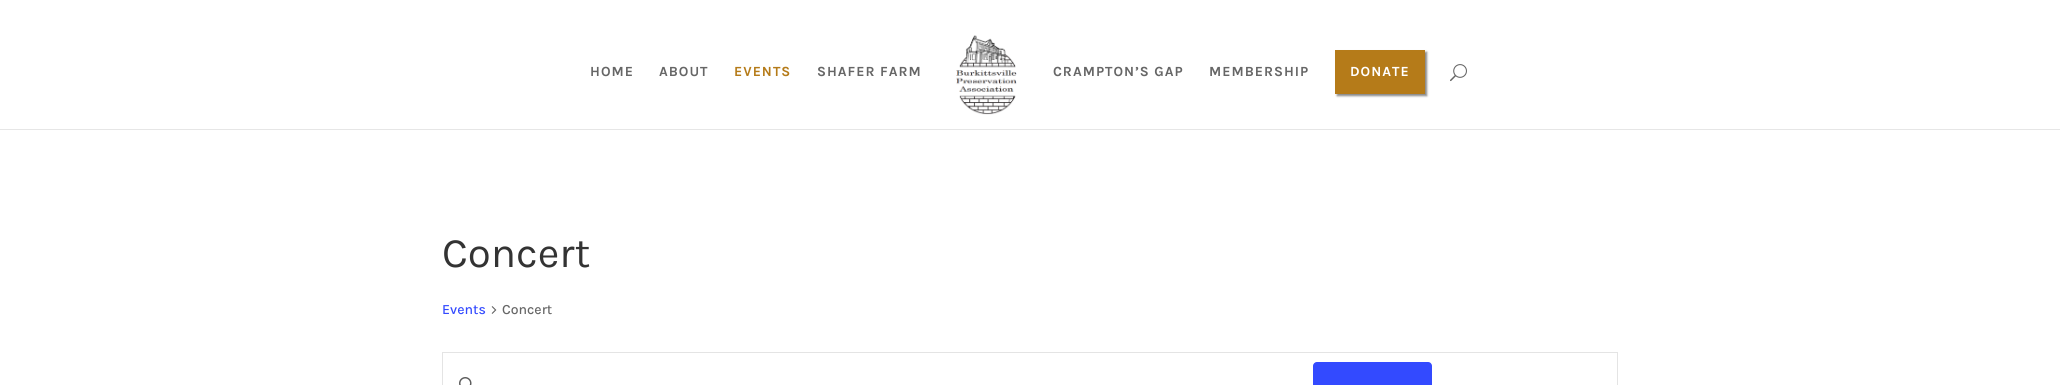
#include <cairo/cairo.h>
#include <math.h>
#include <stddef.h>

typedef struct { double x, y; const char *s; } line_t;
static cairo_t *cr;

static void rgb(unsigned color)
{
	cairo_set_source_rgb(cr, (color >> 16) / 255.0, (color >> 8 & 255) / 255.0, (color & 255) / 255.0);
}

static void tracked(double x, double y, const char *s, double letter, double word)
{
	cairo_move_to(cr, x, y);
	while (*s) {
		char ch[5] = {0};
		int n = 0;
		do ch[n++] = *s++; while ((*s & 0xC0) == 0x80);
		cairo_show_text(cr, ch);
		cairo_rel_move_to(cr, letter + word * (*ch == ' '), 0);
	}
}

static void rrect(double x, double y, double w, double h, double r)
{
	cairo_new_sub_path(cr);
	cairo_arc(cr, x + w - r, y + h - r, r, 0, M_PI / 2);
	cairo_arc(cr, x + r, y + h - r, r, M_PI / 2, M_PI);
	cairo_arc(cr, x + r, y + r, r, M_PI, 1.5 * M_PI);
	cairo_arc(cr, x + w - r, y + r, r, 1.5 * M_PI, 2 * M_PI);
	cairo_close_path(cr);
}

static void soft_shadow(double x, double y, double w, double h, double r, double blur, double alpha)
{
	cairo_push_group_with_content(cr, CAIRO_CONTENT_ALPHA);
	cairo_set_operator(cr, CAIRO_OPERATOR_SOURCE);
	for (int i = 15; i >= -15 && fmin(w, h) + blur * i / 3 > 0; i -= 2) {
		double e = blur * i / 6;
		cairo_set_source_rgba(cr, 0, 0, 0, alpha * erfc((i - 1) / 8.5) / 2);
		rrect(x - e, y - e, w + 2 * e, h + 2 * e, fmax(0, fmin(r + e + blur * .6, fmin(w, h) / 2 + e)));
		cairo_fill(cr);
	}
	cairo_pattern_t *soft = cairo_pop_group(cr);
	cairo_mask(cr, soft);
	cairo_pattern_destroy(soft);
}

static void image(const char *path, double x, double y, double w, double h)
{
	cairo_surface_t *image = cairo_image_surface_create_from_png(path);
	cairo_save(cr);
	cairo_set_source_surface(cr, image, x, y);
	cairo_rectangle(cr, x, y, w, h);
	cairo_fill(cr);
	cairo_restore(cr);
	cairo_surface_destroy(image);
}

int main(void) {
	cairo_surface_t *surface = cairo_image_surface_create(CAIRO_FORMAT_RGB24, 2060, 385);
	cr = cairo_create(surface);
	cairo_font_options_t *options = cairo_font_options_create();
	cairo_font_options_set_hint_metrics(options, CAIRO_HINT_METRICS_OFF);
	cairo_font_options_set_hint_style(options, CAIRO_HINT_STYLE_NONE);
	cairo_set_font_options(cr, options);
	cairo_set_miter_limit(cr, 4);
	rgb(0xffffff);
	cairo_paint(cr);
	rgb(0xe6e6e6);
	cairo_rectangle(cr, 0, 129, 2060, 1);
	cairo_fill(cr);
	image("img/1.png", 956, 35, 61, 80);
	rgb(0x888888);
	soft_shadow(1337, 52, 90, 44, 0, 1, 1);
	rgb(0xb57b19);
	cairo_rectangle(cr, 1335, 50, 90, 44);
	cairo_fill(cr);
	image("img/2.png", 1450, 64, 17, 18);
	image("img/3.png", 491, 306, 6, 8);
	cairo_rectangle(cr, 442.5, 352.5, 1175, 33);
	rgb(0xe4e4e4);
	cairo_set_line_width(cr, 1);
	cairo_stroke(cr);
	image("img/4.png", 459, 377, 13, 8);
	rgb(0x334aff);
	rrect(1313, 362, 119, 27, 4);
	cairo_fill(cr);
	cairo_select_font_face(cr, "Karla", CAIRO_FONT_SLANT_NORMAL, CAIRO_FONT_WEIGHT_BOLD);
	cairo_set_font_size(cr, 14);
	rgb(0x666666);
	tracked(590, 76, "HOME", 1, 0);
	tracked(659, 76, "ABOUT", 1, 0);
	rgb(0xb57b19);
	tracked(734, 76, "EVENTS", 1, 0);
	rgb(0x666666);
	{
		static const line_t items[] = {
			{817, 76, "SHAFER FARM"},
			{1053, 76, "CRAMPTON’S GAP"},
			{1209, 76, "MEMBERSHIP"},
		};
		for (size_t i = 0; i < sizeof items / sizeof *items; i++) {
			tracked(items[i].x, items[i].y, items[i].s, 1, 0);
		}
	}
	rgb(0xffffff);
	tracked(1350, 76, "DONATE", 1, 0);
	cairo_select_font_face(cr, "Karla", CAIRO_FONT_SLANT_NORMAL, CAIRO_FONT_WEIGHT_NORMAL);
	cairo_set_font_size(cr, 42);
	rgb(0x333333);
	cairo_move_to(cr, 442, 267);
	cairo_show_text(cr, "Concert");
	cairo_select_font_face(cr, "Karla Medium", CAIRO_FONT_SLANT_NORMAL, CAIRO_FONT_WEIGHT_NORMAL);
	cairo_set_font_size(cr, 14);
	rgb(0x334aff);
	cairo_move_to(cr, 442, 314);
	cairo_show_text(cr, "Events");
	rgb(0x666666);
	cairo_move_to(cr, 502, 314);
	cairo_show_text(cr, "Concert");
	cairo_surface_write_to_png(surface, "page.png");
	cairo_font_options_destroy(options);
	cairo_destroy(cr);
	cairo_surface_destroy(surface);
	return 0;
}
